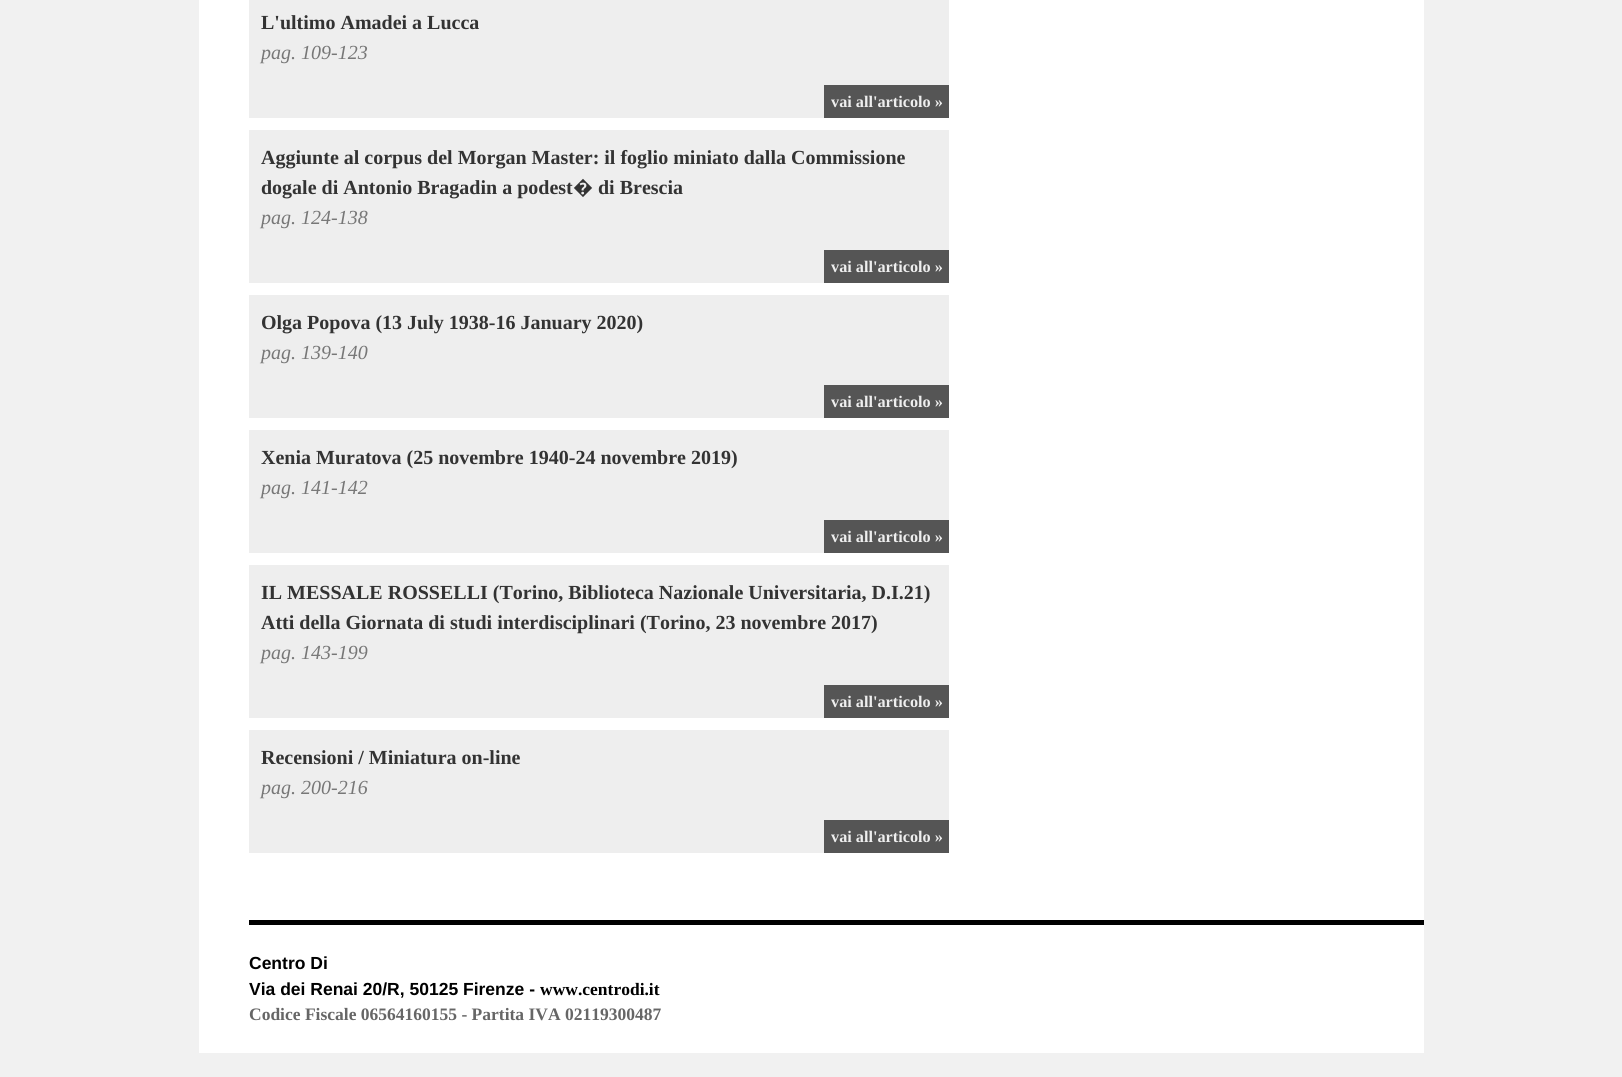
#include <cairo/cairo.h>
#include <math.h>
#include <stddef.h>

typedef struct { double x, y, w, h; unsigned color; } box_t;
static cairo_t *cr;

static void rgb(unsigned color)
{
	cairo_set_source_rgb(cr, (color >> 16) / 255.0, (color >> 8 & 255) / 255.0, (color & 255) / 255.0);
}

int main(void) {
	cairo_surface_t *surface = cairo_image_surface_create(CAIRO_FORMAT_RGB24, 1622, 1077);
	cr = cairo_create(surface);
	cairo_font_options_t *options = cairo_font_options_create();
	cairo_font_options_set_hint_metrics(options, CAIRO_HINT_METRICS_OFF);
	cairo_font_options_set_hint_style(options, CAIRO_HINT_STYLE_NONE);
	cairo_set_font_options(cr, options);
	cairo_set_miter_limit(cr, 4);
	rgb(0xf1f1f1);
	cairo_paint(cr);
	{
		static const box_t items[] = {
			{199, 0, 1225, 1053, 0xffffff},
			{249, 0, 700, 118, 0xeeeeee},
			{824, 85, 125, 33, 0x555555},
			{249, 130, 700, 153, 0xeeeeee},
			{824, 250, 125, 33, 0x555555},
			{249, 295, 700, 123, 0xeeeeee},
			{824, 385, 125, 33, 0x555555},
			{249, 430, 700, 123, 0xeeeeee},
			{824, 520, 125, 33, 0x555555},
			{249, 565, 700, 153, 0xeeeeee},
			{824, 685, 125, 33, 0x555555},
			{249, 730, 700, 123, 0xeeeeee},
			{824, 820, 125, 33, 0x555555},
			{249, 920, 1175, 5, 0x000000},
		};
		for (size_t i = 0; i < sizeof items / sizeof *items; i++) {
			rgb(items[i].color);
			cairo_rectangle(cr, items[i].x, items[i].y, items[i].w, items[i].h);
			cairo_fill(cr);
		}
	}
	cairo_select_font_face(cr, "Liberation Serif", CAIRO_FONT_SLANT_NORMAL, CAIRO_FONT_WEIGHT_BOLD);
	cairo_set_font_size(cr, 20);
	rgb(0x333333);
	cairo_move_to(cr, 261, 29);
	cairo_show_text(cr, "L'ultimo Amadei a Lucca");
	cairo_select_font_face(cr, "Liberation Serif", CAIRO_FONT_SLANT_ITALIC, CAIRO_FONT_WEIGHT_NORMAL);
	rgb(0x777777);
	cairo_move_to(cr, 261, 59);
	cairo_show_text(cr, "pag. 109-123");
	cairo_select_font_face(cr, "Liberation Serif", CAIRO_FONT_SLANT_NORMAL, CAIRO_FONT_WEIGHT_BOLD);
	cairo_set_font_size(cr, 16.25);
	rgb(0xeeeeee);
	cairo_move_to(cr, 831, 107);
	cairo_show_text(cr, "vai all'articolo »");
	cairo_set_font_size(cr, 20);
	rgb(0x333333);
	cairo_move_to(cr, 261, 164);
	cairo_show_text(cr, "Aggiunte al corpus del Morgan Master: il foglio miniato dalla Commissione");
	cairo_move_to(cr, 261, 194);
	cairo_show_text(cr, "dogale di Antonio Bragadin a podest");
	cairo_select_font_face(cr, "Noto Sans", CAIRO_FONT_SLANT_NORMAL, CAIRO_FONT_WEIGHT_BOLD);
	cairo_move_to(cr, 573, 194);
	cairo_show_text(cr, "�");
	cairo_select_font_face(cr, "Liberation Serif", CAIRO_FONT_SLANT_NORMAL, CAIRO_FONT_WEIGHT_BOLD);
	cairo_move_to(cr, 598, 194);
	cairo_show_text(cr, "di Brescia");
	cairo_select_font_face(cr, "Liberation Serif", CAIRO_FONT_SLANT_ITALIC, CAIRO_FONT_WEIGHT_NORMAL);
	rgb(0x777777);
	cairo_move_to(cr, 261, 224);
	cairo_show_text(cr, "pag. 124-138");
	cairo_select_font_face(cr, "Liberation Serif", CAIRO_FONT_SLANT_NORMAL, CAIRO_FONT_WEIGHT_BOLD);
	cairo_set_font_size(cr, 16.25);
	rgb(0xeeeeee);
	cairo_move_to(cr, 831, 272);
	cairo_show_text(cr, "vai all'articolo »");
	cairo_set_font_size(cr, 20);
	rgb(0x333333);
	cairo_move_to(cr, 261, 329);
	cairo_show_text(cr, "Olga Popova (13 July 1938-16 January 2020)");
	cairo_select_font_face(cr, "Liberation Serif", CAIRO_FONT_SLANT_ITALIC, CAIRO_FONT_WEIGHT_NORMAL);
	rgb(0x777777);
	cairo_move_to(cr, 261, 359);
	cairo_show_text(cr, "pag. 139-140");
	cairo_select_font_face(cr, "Liberation Serif", CAIRO_FONT_SLANT_NORMAL, CAIRO_FONT_WEIGHT_BOLD);
	cairo_set_font_size(cr, 16.25);
	rgb(0xeeeeee);
	cairo_move_to(cr, 831, 407);
	cairo_show_text(cr, "vai all'articolo »");
	cairo_set_font_size(cr, 20);
	rgb(0x333333);
	cairo_move_to(cr, 261, 464);
	cairo_show_text(cr, "Xenia Muratova (25 novembre 1940-24 novembre 2019)");
	cairo_select_font_face(cr, "Liberation Serif", CAIRO_FONT_SLANT_ITALIC, CAIRO_FONT_WEIGHT_NORMAL);
	rgb(0x777777);
	cairo_move_to(cr, 261, 494);
	cairo_show_text(cr, "pag. 141-142");
	cairo_select_font_face(cr, "Liberation Serif", CAIRO_FONT_SLANT_NORMAL, CAIRO_FONT_WEIGHT_BOLD);
	cairo_set_font_size(cr, 16.25);
	rgb(0xeeeeee);
	cairo_move_to(cr, 831, 542);
	cairo_show_text(cr, "vai all'articolo »");
	cairo_set_font_size(cr, 20);
	rgb(0x333333);
	cairo_move_to(cr, 261, 599);
	cairo_show_text(cr, "IL MESSALE ROSSELLI (Torino, Biblioteca Nazionale Universitaria, D.I.21)");
	cairo_move_to(cr, 261, 629);
	cairo_show_text(cr, "Atti della Giornata di studi interdisciplinari (Torino, 23 novembre 2017)");
	cairo_select_font_face(cr, "Liberation Serif", CAIRO_FONT_SLANT_ITALIC, CAIRO_FONT_WEIGHT_NORMAL);
	rgb(0x777777);
	cairo_move_to(cr, 261, 659);
	cairo_show_text(cr, "pag. 143-199");
	cairo_select_font_face(cr, "Liberation Serif", CAIRO_FONT_SLANT_NORMAL, CAIRO_FONT_WEIGHT_BOLD);
	cairo_set_font_size(cr, 16.25);
	rgb(0xeeeeee);
	cairo_move_to(cr, 831, 707);
	cairo_show_text(cr, "vai all'articolo »");
	cairo_set_font_size(cr, 20);
	rgb(0x333333);
	cairo_move_to(cr, 261, 764);
	cairo_show_text(cr, "Recensioni / Miniatura on-line");
	cairo_select_font_face(cr, "Liberation Serif", CAIRO_FONT_SLANT_ITALIC, CAIRO_FONT_WEIGHT_NORMAL);
	rgb(0x777777);
	cairo_move_to(cr, 261, 794);
	cairo_show_text(cr, "pag. 200-216");
	cairo_select_font_face(cr, "Liberation Serif", CAIRO_FONT_SLANT_NORMAL, CAIRO_FONT_WEIGHT_BOLD);
	cairo_set_font_size(cr, 16.25);
	rgb(0xeeeeee);
	cairo_move_to(cr, 831, 842);
	cairo_show_text(cr, "vai all'articolo »");
	cairo_select_font_face(cr, "Liberation Sans", CAIRO_FONT_SLANT_NORMAL, CAIRO_FONT_WEIGHT_BOLD);
	cairo_set_font_size(cr, 17.5);
	rgb(0x000000);
	cairo_move_to(cr, 249, 969);
	cairo_show_text(cr, "Centro Di");
	cairo_move_to(cr, 249, 995);
	cairo_show_text(cr, "Via dei Renai 20/R, 50125 Firenze -");
	cairo_select_font_face(cr, "Liberation Serif", CAIRO_FONT_SLANT_NORMAL, CAIRO_FONT_WEIGHT_BOLD);
	cairo_move_to(cr, 540, 995);
	cairo_show_text(cr, "www.centrodi.it");
	rgb(0x666666);
	cairo_move_to(cr, 249, 1020);
	cairo_show_text(cr, "Codice Fiscale 06564160155 - Partita IVA 02119300487");
	cairo_surface_write_to_png(surface, "page.png");
	cairo_font_options_destroy(options);
	cairo_destroy(cr);
	cairo_surface_destroy(surface);
	return 0;
}
